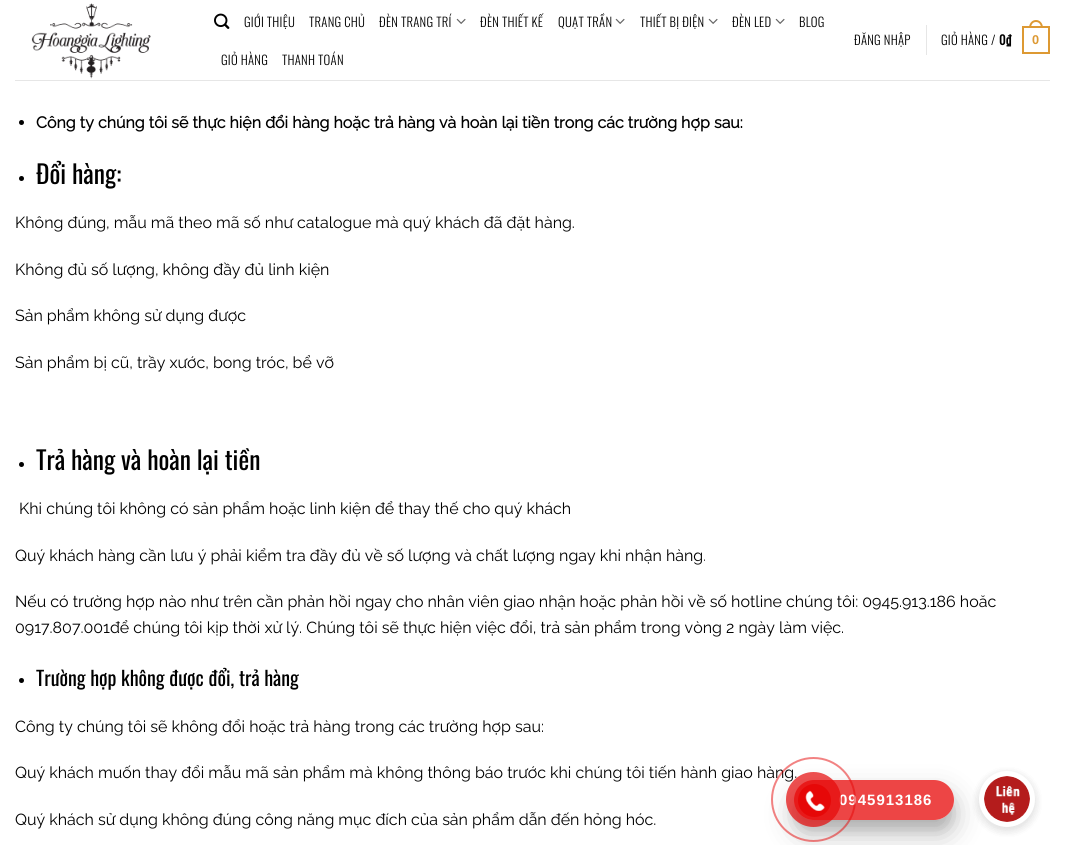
#include <cairo/cairo.h>
#include <math.h>
#include <stddef.h>

typedef struct { double x, y; const char *s; } line_t;
static cairo_t *cr;

static void rgb(unsigned color)
{
	cairo_set_source_rgb(cr, (color >> 16) / 255.0, (color >> 8 & 255) / 255.0, (color & 255) / 255.0);
}

static void tracked(double x, double y, const char *s, double letter, double word)
{
	cairo_move_to(cr, x, y);
	while (*s) {
		char ch[5] = {0};
		int n = 0;
		do ch[n++] = *s++; while ((*s & 0xC0) == 0x80);
		cairo_show_text(cr, ch);
		cairo_rel_move_to(cr, letter + word * (*ch == ' '), 0);
	}
}

static void rrect(double x, double y, double w, double h, double r)
{
	cairo_new_sub_path(cr);
	cairo_arc(cr, x + w - r, y + h - r, r, 0, M_PI / 2);
	cairo_arc(cr, x + r, y + h - r, r, M_PI / 2, M_PI);
	cairo_arc(cr, x + r, y + r, r, M_PI, 1.5 * M_PI);
	cairo_arc(cr, x + w - r, y + r, r, 1.5 * M_PI, 2 * M_PI);
	cairo_close_path(cr);
}

static void soft_shadow(double x, double y, double w, double h, double r, double blur, double alpha)
{
	cairo_push_group_with_content(cr, CAIRO_CONTENT_ALPHA);
	cairo_set_operator(cr, CAIRO_OPERATOR_SOURCE);
	for (int i = 15; i >= -15 && fmin(w, h) + blur * i / 3 > 0; i -= 2) {
		double e = blur * i / 6;
		cairo_set_source_rgba(cr, 0, 0, 0, alpha * erfc((i - 1) / 8.5) / 2);
		rrect(x - e, y - e, w + 2 * e, h + 2 * e, fmax(0, fmin(r + e + blur * .6, fmin(w, h) / 2 + e)));
		cairo_fill(cr);
	}
	cairo_pattern_t *soft = cairo_pop_group(cr);
	cairo_mask(cr, soft);
	cairo_pattern_destroy(soft);
}

static void image(const char *path, double x, double y, double w, double h)
{
	cairo_surface_t *image = cairo_image_surface_create_from_png(path);
	cairo_save(cr);
	cairo_set_source_surface(cr, image, x, y);
	cairo_rectangle(cr, x, y, w, h);
	cairo_fill(cr);
	cairo_restore(cr);
	cairo_surface_destroy(image);
}

int main(void) {
	cairo_surface_t *surface = cairo_image_surface_create(CAIRO_FORMAT_RGB24, 1065, 845);
	cr = cairo_create(surface);
	cairo_font_options_t *options = cairo_font_options_create();
	cairo_font_options_set_hint_metrics(options, CAIRO_HINT_METRICS_OFF);
	cairo_font_options_set_hint_style(options, CAIRO_HINT_STYLE_NONE);
	cairo_set_font_options(cr, options);
	cairo_set_miter_limit(cr, 4);
	rgb(0xffffff);
	cairo_paint(cr);
	image("img/1.png", 31, 3, 120, 76);
	image("img/2.png", 214, 13, 16, 16);
	image("img/3.png", 456, 18, 10, 6);
	image("img/3.png", 615, 18, 10, 6);
	image("img/3.png", 708, 18, 10, 6);
	image("img/3.png", 775, 18, 10, 6);
	rgb(0xe6e6e6);
	cairo_rectangle(cr, 926, 25, 1, 30);
	cairo_fill(cr);
	cairo_rectangle(cr, 1023, 27, 26, 26);
	rgb(0xdd9933);
	cairo_stroke(cr);
	cairo_set_fill_rule(cr, CAIRO_FILL_RULE_EVEN_ODD);
	cairo_new_path(cr);
	cairo_move_to(cr, 1036, 20);
	cairo_curve_to(cr, 1040.5, 20, 1043, 24, 1043, 28);
	cairo_line_to(cr, 1029, 28);
	cairo_curve_to(cr, 1029, 24, 1031.5, 20, 1036, 20);
	cairo_close_path(cr);
	cairo_move_to(cr, 1036, 22);
	cairo_curve_to(cr, 1039.5, 22, 1041, 25, 1041, 28);
	cairo_line_to(cr, 1031, 28);
	cairo_curve_to(cr, 1031, 25, 1032.5, 22, 1036, 22);
	cairo_close_path(cr);
	cairo_fill(cr);
	rgb(0xe6e6e6);
	cairo_rectangle(cr, 15, 80, 1035, 1);
	cairo_fill(cr);
	rgb(0x000000);
	cairo_arc(cr, 21.5, 122.5, 2.5, 0, 2 * M_PI);
	cairo_fill(cr);
	cairo_arc(cr, 21.5, 178.5, 2.5, 0, 2 * M_PI);
	cairo_fill(cr);
	cairo_arc(cr, 21.5, 464.5, 2.5, 0, 2 * M_PI);
	cairo_fill(cr);
	cairo_arc(cr, 21.5, 680.5, 2.5, 0, 2 * M_PI);
	cairo_fill(cr);
	cairo_save(cr);
	cairo_new_path(cr);
	cairo_move_to(cr, 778, 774);
	cairo_line_to(cr, 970, 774);
	cairo_line_to(cr, 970, 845);
	cairo_line_to(cr, 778, 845);
	cairo_close_path(cr);
	cairo_move_to(cr, 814, 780);
	cairo_line_to(cr, 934, 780);
	cairo_curve_to(cr, 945, 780, 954, 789, 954, 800);
	cairo_curve_to(cr, 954, 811, 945, 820, 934, 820);
	cairo_line_to(cr, 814, 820);
	cairo_curve_to(cr, 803, 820, 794, 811, 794, 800);
	cairo_curve_to(cr, 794, 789, 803, 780, 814, 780);
	cairo_close_path(cr);
	cairo_clip(cr);
	rgb(0x000000);
	soft_shadow(794, 790, 160, 40, 20, 5, 0.1);
	cairo_restore(cr);
	cairo_save(cr);
	cairo_new_path(cr);
	cairo_move_to(cr, 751, 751);
	cairo_line_to(cr, 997, 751);
	cairo_line_to(cr, 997, 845);
	cairo_line_to(cr, 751, 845);
	cairo_close_path(cr);
	cairo_move_to(cr, 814, 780);
	cairo_line_to(cr, 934, 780);
	cairo_curve_to(cr, 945, 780, 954, 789, 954, 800);
	cairo_curve_to(cr, 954, 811, 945, 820, 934, 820);
	cairo_line_to(cr, 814, 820);
	cairo_curve_to(cr, 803, 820, 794, 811, 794, 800);
	cairo_curve_to(cr, 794, 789, 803, 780, 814, 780);
	cairo_close_path(cr);
	cairo_clip(cr);
	rgb(0x000000);
	soft_shadow(794, 794, 160, 40, 20, 14, 0.25);
	cairo_restore(cr);
	rgb(0x000000);
	soft_shadow(979, 774, 56, 56, 28, 5, 0.08);
	soft_shadow(979, 774, 56, 56, 28, 5, 0.08);
	rgb(0xffffff);
	cairo_arc(cr, 1007, 799, 25.5, 0, 2 * M_PI);
	cairo_fill_preserve(cr);
	cairo_set_line_width(cr, 5);
	cairo_stroke(cr);
	image("img/5.png", 984, 776, 46, 46);
	cairo_select_font_face(cr, "Oswald Light", CAIRO_FONT_SLANT_NORMAL, CAIRO_FONT_WEIGHT_NORMAL);
	cairo_set_font_size(cr, 12.75);
	rgb(0x000000);
	{
		static const line_t items[] = {
			{244, 27, "GIỚI THIỆU"},
			{309, 27, "TRANG CHỦ"},
			{379, 27, "ĐÈN TRANG TRÍ"},
			{480, 27, "ĐÈN THIẾT KẾ"},
			{558, 27, "QUẠT TRẦN"},
			{640, 27, "THIẾT BỊ ĐIỆN"},
			{732, 27, "ĐÈN LED"},
			{799, 27, "BLOG"},
			{221, 65, "GIỎ HÀNG"},
			{282, 65, "THANH TOÁN"},
			{854, 45, "ĐĂNG NHẬP"},
			{941, 45, "GIỎ HÀNG /"},
		};
		for (size_t i = 0; i < sizeof items / sizeof *items; i++) {
			tracked(items[i].x, items[i].y, items[i].s, 0.25, 0);
		}
	}
	cairo_select_font_face(cr, "Oswald", CAIRO_FONT_SLANT_NORMAL, CAIRO_FONT_WEIGHT_BOLD);
	tracked(999, 45, "0₫", 0.25, 0);
	cairo_select_font_face(cr, "Liberation Sans", CAIRO_FONT_SLANT_NORMAL, CAIRO_FONT_WEIGHT_BOLD);
	rgb(0xdd9933);
	tracked(1032, 44, "0", 0.25, 0);
	cairo_select_font_face(cr, "Raleway", CAIRO_FONT_SLANT_NORMAL, CAIRO_FONT_WEIGHT_BOLD);
	cairo_set_font_size(cr, 16);
	rgb(0x000000);
	cairo_move_to(cr, 36, 128);
	cairo_show_text(cr, "Công ty chúng tôi sẽ thực hiện đổi hàng hoặc trả hàng và hoàn lại tiền trong các trường hợp sau:");
	cairo_select_font_face(cr, "Oswald", CAIRO_FONT_SLANT_NORMAL, CAIRO_FONT_WEIGHT_NORMAL);
	cairo_set_font_size(cr, 25.5);
	cairo_move_to(cr, 36, 184);
	cairo_show_text(cr, "Đổi hàng:");
	cairo_select_font_face(cr, "Raleway Thin", CAIRO_FONT_SLANT_NORMAL, CAIRO_FONT_WEIGHT_NORMAL);
	cairo_set_font_size(cr, 16);
	{
		static const line_t items[] = {
			{15, 228, "Không đúng, mẫu mã theo mã số như catalogue mà quý khách đã đặt hàng."},
			{15, 275, "Không đủ số lượng, không đầy đủ linh kiện"},
			{15, 321, "Sản phẩm không sử dụng được"},
			{15, 368, "Sản phẩm bị cũ, trầy xước, bong tróc, bể vỡ"},
		};
		for (size_t i = 0; i < sizeof items / sizeof *items; i++) {
			cairo_move_to(cr, items[i].x, items[i].y);
			cairo_show_text(cr, items[i].s);
		}
	}
	cairo_select_font_face(cr, "Oswald", CAIRO_FONT_SLANT_NORMAL, CAIRO_FONT_WEIGHT_NORMAL);
	cairo_set_font_size(cr, 25.5);
	cairo_move_to(cr, 36, 470);
	cairo_show_text(cr, "Trả hàng và hoàn lại tiền");
	cairo_select_font_face(cr, "Raleway Thin", CAIRO_FONT_SLANT_NORMAL, CAIRO_FONT_WEIGHT_NORMAL);
	cairo_set_font_size(cr, 16);
	{
		static const line_t items[] = {
			{19, 514, "Khi chúng tôi không có sản phẩm hoặc linh kiện để thay thế cho quý khách"},
			{15, 561, "Quý khách hàng cần lưu ý phải kiểm tra đầy đủ về số lượng và chất lượng ngay khi nhận hàng."},
			{15, 607, "Nếu có trường hợp nào như trên cần phản hồi ngay cho nhân viên giao nhận hoặc phản hồi về số hotline chúng tôi: 0945.913.186 hoăc"},
			{15, 633, "0917.807.001để chúng tôi kịp thời xử lý. Chúng tôi sẽ thực hiện việc đổi, trả sản phẩm trong vòng 2 ngày làm việc."},
		};
		for (size_t i = 0; i < sizeof items / sizeof *items; i++) {
			cairo_move_to(cr, items[i].x, items[i].y);
			cairo_show_text(cr, items[i].s);
		}
	}
	cairo_select_font_face(cr, "Oswald", CAIRO_FONT_SLANT_NORMAL, CAIRO_FONT_WEIGHT_NORMAL);
	cairo_set_font_size(cr, 20);
	cairo_move_to(cr, 36, 686);
	cairo_show_text(cr, "Trường hợp không được đổi, trả hàng");
	cairo_select_font_face(cr, "Raleway Thin", CAIRO_FONT_SLANT_NORMAL, CAIRO_FONT_WEIGHT_NORMAL);
	cairo_set_font_size(cr, 16);
	{
		static const line_t items[] = {
			{15, 732, "Công ty chúng tôi sẽ không đổi hoặc trả hàng trong các trường hợp sau:"},
			{15, 778, "Quý khách muốn thay đổi mẫu mã sản phẩm mà không thông báo trước khi chúng tôi tiến hành giao hàng."},
			{15, 825, "Quý khách sử dụng không đúng công năng mục đích của sản phẩm dẫn đến hỏng hóc."},
		};
		for (size_t i = 0; i < sizeof items / sizeof *items; i++) {
			cairo_move_to(cr, items[i].x, items[i].y);
			cairo_show_text(cr, items[i].s);
		}
	}
	cairo_set_source_rgba(cr, 0.902, 0.031, 0.031, 0.75);
	rrect(794, 780, 160, 40, 20);
	cairo_fill(cr);
	cairo_select_font_face(cr, "Liberation Sans", CAIRO_FONT_SLANT_NORMAL, CAIRO_FONT_WEIGHT_BOLD);
	cairo_set_font_size(cr, 15);
	rgb(0xffffff);
	tracked(839, 805, "0945913186", 1, 0);
	cairo_new_path(cr);
	cairo_arc(cr, 813.5, 799.5, 41.5, 0, 2 * M_PI);
	cairo_set_source_rgba(cr, 0.902, 0.031, 0.031, 0.5);
	cairo_set_line_width(cr, 2);
	cairo_stroke(cr);
	cairo_set_source_rgba(cr, 0.902, 0.031, 0.031, 0.7);
	cairo_arc(cr, 813.5, 799.5, 27.5, 0, 2 * M_PI);
	cairo_fill(cr);
	rgb(0xe60808);
	cairo_arc(cr, 814.5, 800.5, 16.5, 0, 2 * M_PI);
	cairo_fill(cr);
	image("img/4.png", 805, 790, 20, 21);
	cairo_surface_write_to_png(surface, "page.png");
	cairo_font_options_destroy(options);
	cairo_destroy(cr);
	cairo_surface_destroy(surface);
	return 0;
}
